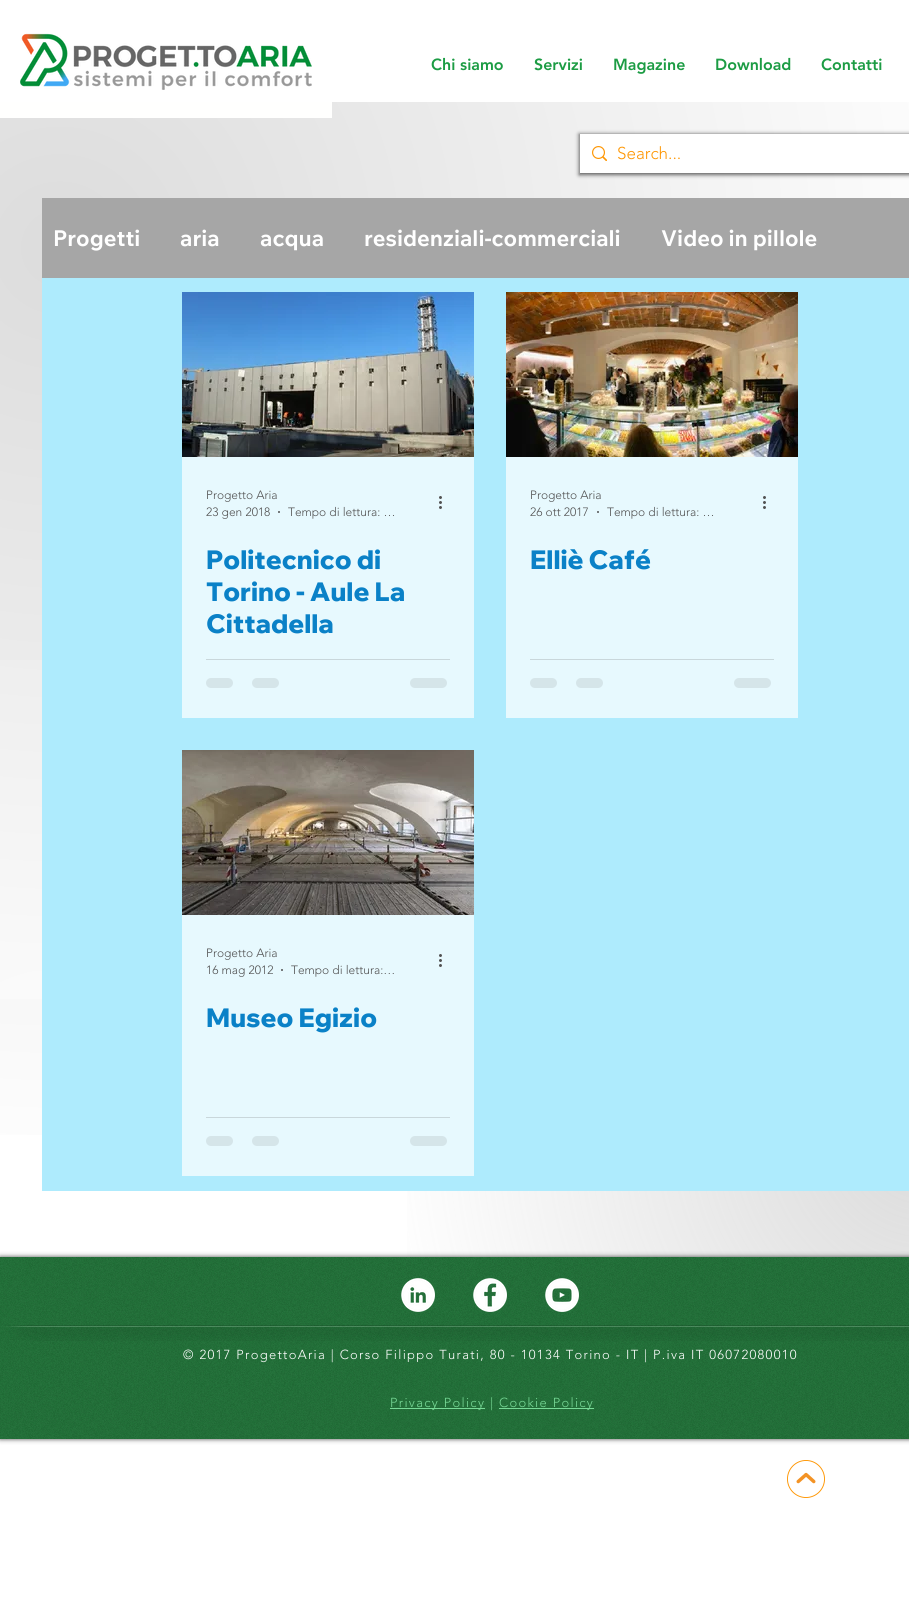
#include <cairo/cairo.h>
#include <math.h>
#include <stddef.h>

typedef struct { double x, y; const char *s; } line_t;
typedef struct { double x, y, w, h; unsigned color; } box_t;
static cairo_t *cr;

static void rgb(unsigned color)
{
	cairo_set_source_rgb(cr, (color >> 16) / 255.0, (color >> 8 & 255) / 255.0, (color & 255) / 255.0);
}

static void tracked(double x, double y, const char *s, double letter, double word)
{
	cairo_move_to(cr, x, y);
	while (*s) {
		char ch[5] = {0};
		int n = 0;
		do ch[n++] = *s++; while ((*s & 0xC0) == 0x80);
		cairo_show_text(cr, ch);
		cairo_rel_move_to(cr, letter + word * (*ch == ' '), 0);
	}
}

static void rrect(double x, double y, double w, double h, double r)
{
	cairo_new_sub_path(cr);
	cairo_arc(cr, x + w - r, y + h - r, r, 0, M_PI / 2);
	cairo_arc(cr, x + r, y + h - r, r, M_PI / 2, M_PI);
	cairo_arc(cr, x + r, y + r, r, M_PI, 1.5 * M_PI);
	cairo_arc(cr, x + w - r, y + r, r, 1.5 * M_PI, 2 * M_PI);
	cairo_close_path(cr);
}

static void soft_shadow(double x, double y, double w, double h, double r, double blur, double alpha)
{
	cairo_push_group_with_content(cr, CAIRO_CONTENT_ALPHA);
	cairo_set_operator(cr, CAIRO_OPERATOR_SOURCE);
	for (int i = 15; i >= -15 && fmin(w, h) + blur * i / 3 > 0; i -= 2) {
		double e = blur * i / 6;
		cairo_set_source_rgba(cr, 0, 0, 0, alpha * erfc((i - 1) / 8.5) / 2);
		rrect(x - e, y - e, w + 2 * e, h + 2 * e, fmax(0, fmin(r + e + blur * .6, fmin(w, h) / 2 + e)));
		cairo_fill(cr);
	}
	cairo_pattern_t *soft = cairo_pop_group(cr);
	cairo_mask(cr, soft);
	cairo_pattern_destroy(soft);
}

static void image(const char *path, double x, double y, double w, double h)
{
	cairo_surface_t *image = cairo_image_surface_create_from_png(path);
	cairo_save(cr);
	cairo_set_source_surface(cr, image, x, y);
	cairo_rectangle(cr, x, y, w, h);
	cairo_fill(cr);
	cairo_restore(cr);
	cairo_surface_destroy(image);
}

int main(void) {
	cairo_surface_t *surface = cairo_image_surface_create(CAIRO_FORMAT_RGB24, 909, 1598);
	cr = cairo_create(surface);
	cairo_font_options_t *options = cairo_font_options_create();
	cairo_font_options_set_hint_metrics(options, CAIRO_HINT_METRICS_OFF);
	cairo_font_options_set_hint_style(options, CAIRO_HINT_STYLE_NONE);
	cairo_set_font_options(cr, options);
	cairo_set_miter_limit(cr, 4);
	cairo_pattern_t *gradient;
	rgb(0xffffff);
	cairo_paint(cr);
	image("img/1.png", 20, 33, 292, 57);
	gradient = cairo_pattern_create_radial(60, 248, 0, 60, 248, 1365);
	cairo_pattern_add_color_stop_rgba(gradient, 0, 0.863, 0.863, 0.863, 1);
	cairo_pattern_add_color_stop_rgba(gradient, 0.7, 1, 1, 1, 1);
	cairo_set_source(cr, gradient);
	cairo_pattern_destroy(gradient);
	cairo_rectangle(cr, 0, 102, 909, 1033);
	cairo_fill(cr);
	rgb(0xfffffe);
	cairo_rectangle(cr, 0, 102, 332, 16);
	cairo_fill(cr);
	gradient = cairo_pattern_create_radial(64, 1119, 0, 64, 1119, 1369);
	cairo_pattern_add_color_stop_rgba(gradient, 0, 1, 1, 1, 0.4);
	cairo_pattern_add_color_stop_rgba(gradient, 0.5, 1, 1, 1, 0);
	cairo_set_source(cr, gradient);
	cairo_pattern_destroy(gradient);
	cairo_rectangle(cr, 0, 660, 254, 339);
	cairo_fill(cr);
	gradient = cairo_pattern_create_radial(925, 1137, 0, 925, 1137, 1388);
	cairo_pattern_add_color_stop_rgba(gradient, 0, 0.651, 0.651, 0.651, 0.4);
	cairo_pattern_add_color_stop_rgba(gradient, 0.4, 0.651, 0.651, 0.651, 0);
	cairo_set_source(cr, gradient);
	cairo_pattern_destroy(gradient);
	cairo_rectangle(cr, 407, 1191, 502, 66);
	cairo_fill(cr);
	rgb(0x000000);
	soft_shadow(579, 134, 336, 41, 0, 2, 0.6);
	rgb(0xffffff);
	cairo_rectangle(cr, 580, 134, 329, 39);
	cairo_fill(cr);
	image("img/2.png", 592, 146, 15, 15);
	{
		static const box_t items[] = {
			{42, 278, 867, 913, 0xaeebfd},
			{42, 198, 867, 80, 0xa6a6a6},
			{182, 457, 292, 261, 0xe7f9fe},
		};
		for (size_t i = 0; i < sizeof items / sizeof *items; i++) {
			rgb(items[i].color);
			cairo_rectangle(cr, items[i].x, items[i].y, items[i].w, items[i].h);
			cairo_fill(cr);
		}
	}
	image("img/3.png", 182, 292, 292, 165);
	rgb(0x515151);
	cairo_arc(cr, 279, 512, 1, 0, 2 * M_PI);
	cairo_fill(cr);
	image("img/4.png", 439, 496, 3, 13);
	rgb(0xc9d7db);
	cairo_rectangle(cr, 206, 659, 244, 1);
	cairo_fill(cr);
	rgb(0xd5e5e9);
	rrect(206, 678, 27, 10, 5);
	cairo_fill(cr);
	rrect(252, 678, 27, 10, 5);
	cairo_fill(cr);
	rrect(410, 678, 37, 10, 5);
	cairo_fill(cr);
	rgb(0xe7f9fe);
	cairo_rectangle(cr, 506, 457, 292, 261);
	cairo_fill(cr);
	image("img/5.png", 506, 292, 292, 165);
	rgb(0x515151);
	cairo_arc(cr, 598, 512, 1, 0, 2 * M_PI);
	cairo_fill(cr);
	image("img/4.png", 763, 496, 3, 13);
	rgb(0xc9d7db);
	cairo_rectangle(cr, 530, 659, 244, 1);
	cairo_fill(cr);
	rgb(0xd5e5e9);
	rrect(530, 678, 27, 10, 5);
	cairo_fill(cr);
	rrect(576, 678, 27, 10, 5);
	cairo_fill(cr);
	rrect(734, 678, 37, 10, 5);
	cairo_fill(cr);
	rgb(0xe7f9fe);
	cairo_rectangle(cr, 182, 915, 292, 261);
	cairo_fill(cr);
	image("img/6.png", 182, 750, 292, 165);
	rgb(0x515151);
	cairo_arc(cr, 282, 970, 1, 0, 2 * M_PI);
	cairo_fill(cr);
	image("img/4.png", 439, 954, 3, 13);
	rgb(0xc9d7db);
	cairo_rectangle(cr, 206, 1117, 244, 1);
	cairo_fill(cr);
	rgb(0xd5e5e9);
	rrect(206, 1136, 27, 10, 5);
	cairo_fill(cr);
	rrect(252, 1136, 27, 10, 5);
	cairo_fill(cr);
	rrect(410, 1136, 37, 10, 5);
	cairo_fill(cr);
	rgb(0x000000);
	soft_shadow(0, 1257, 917, 182, 0, 2.5, 0.7);
	rgb(0x217038);
	cairo_rectangle(cr, 0, 1257, 909, 182);
	cairo_fill(cr);
	image("img/7.png", 0, 1257, 909, 182);
	image("img/8.png", 401, 1278, 34, 34);
	image("img/9.png", 473, 1278, 34, 34);
	image("img/10.png", 545, 1278, 34, 34);
	image("img/11.png", 5, 1325, 25, 15);
	image("img/12.png", 30, 1325, 879, 16);
	rgb(0x77d996);
	cairo_rectangle(cr, 390, 1408, 95, 1);
	cairo_fill(cr);
	cairo_rectangle(cr, 499, 1408, 95, 1);
	cairo_fill(cr);
	image("img/13.png", 787, 1460, 38, 38);
	cairo_select_font_face(cr, "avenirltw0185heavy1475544 Black", CAIRO_FONT_SLANT_NORMAL, CAIRO_FONT_WEIGHT_NORMAL);
	cairo_set_font_size(cr, 16);
	rgb(0x1c9c44);
	{
		static const line_t items[] = {
			{431, 70, "Chi siamo"},
			{534, 70, "Servizi"},
			{613, 70, "Magazine"},
			{715, 70, "Download"},
			{821, 70, "Contatti"},
		};
		for (size_t i = 0; i < sizeof items / sizeof *items; i++) {
			cairo_move_to(cr, items[i].x, items[i].y);
			cairo_show_text(cr, items[i].s);
		}
	}
	cairo_select_font_face(cr, "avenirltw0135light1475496 Light", CAIRO_FONT_SLANT_NORMAL, CAIRO_FONT_WEIGHT_NORMAL);
	cairo_set_font_size(cr, 17);
	rgb(0xfe9705);
	cairo_move_to(cr, 617, 159);
	cairo_show_text(cr, "Search...");
	cairo_select_font_face(cr, "Wix Madefor Text", CAIRO_FONT_SLANT_NORMAL, CAIRO_FONT_WEIGHT_BOLD);
	cairo_set_font_size(cr, 22);
	rgb(0xffffff);
	{
		static const line_t items[] = {
			{53, 246, "Progetti"},
			{180, 246, "aria"},
			{260, 246, "acqua"},
			{364, 246, "residenziali-commerciali"},
			{661, 246, "Video in pillole"},
		};
		for (size_t i = 0; i < sizeof items / sizeof *items; i++) {
			cairo_move_to(cr, items[i].x, items[i].y);
			cairo_show_text(cr, items[i].s);
		}
	}
	cairo_select_font_face(cr, "avenirltw0135light1475496 Light", CAIRO_FONT_SLANT_NORMAL, CAIRO_FONT_WEIGHT_NORMAL);
	cairo_set_font_size(cr, 12);
	rgb(0x515151);
	{
		static const line_t items[] = {
			{206, 499, "Progetto Aria"},
			{206, 516, "23 gen 2018"},
			{288, 516, "Tempo di lettura: …"},
		};
		for (size_t i = 0; i < sizeof items / sizeof *items; i++) {
			cairo_move_to(cr, items[i].x, items[i].y);
			cairo_show_text(cr, items[i].s);
		}
	}
	cairo_select_font_face(cr, "Wix Madefor Display ExtraBold", CAIRO_FONT_SLANT_NORMAL, CAIRO_FONT_WEIGHT_NORMAL);
	cairo_set_font_size(cr, 26);
	rgb(0x0a81c7);
	{
		static const line_t items[] = {
			{206, 569, "Politecnico di"},
			{206, 601, "Torino - Aule La"},
			{206, 633, "Cittadella"},
		};
		for (size_t i = 0; i < sizeof items / sizeof *items; i++) {
			cairo_move_to(cr, items[i].x, items[i].y);
			cairo_show_text(cr, items[i].s);
		}
	}
	cairo_select_font_face(cr, "avenirltw0135light1475496 Light", CAIRO_FONT_SLANT_NORMAL, CAIRO_FONT_WEIGHT_NORMAL);
	cairo_set_font_size(cr, 12);
	rgb(0x515151);
	{
		static const line_t items[] = {
			{530, 499, "Progetto Aria"},
			{530, 516, "26 ott 2017"},
			{607, 516, "Tempo di lettura: …"},
		};
		for (size_t i = 0; i < sizeof items / sizeof *items; i++) {
			cairo_move_to(cr, items[i].x, items[i].y);
			cairo_show_text(cr, items[i].s);
		}
	}
	cairo_select_font_face(cr, "Wix Madefor Display ExtraBold", CAIRO_FONT_SLANT_NORMAL, CAIRO_FONT_WEIGHT_NORMAL);
	cairo_set_font_size(cr, 26);
	rgb(0x0a81c7);
	cairo_move_to(cr, 530, 569);
	cairo_show_text(cr, "Elliè Café");
	cairo_select_font_face(cr, "avenirltw0135light1475496 Light", CAIRO_FONT_SLANT_NORMAL, CAIRO_FONT_WEIGHT_NORMAL);
	cairo_set_font_size(cr, 12);
	rgb(0x515151);
	{
		static const line_t items[] = {
			{206, 957, "Progetto Aria"},
			{206, 974, "16 mag 2012"},
			{291, 974, "Tempo di lettura:…"},
		};
		for (size_t i = 0; i < sizeof items / sizeof *items; i++) {
			cairo_move_to(cr, items[i].x, items[i].y);
			cairo_show_text(cr, items[i].s);
		}
	}
	cairo_select_font_face(cr, "Wix Madefor Display ExtraBold", CAIRO_FONT_SLANT_NORMAL, CAIRO_FONT_WEIGHT_NORMAL);
	cairo_set_font_size(cr, 26);
	rgb(0x0a81c7);
	cairo_move_to(cr, 206, 1027);
	cairo_show_text(cr, "Museo Egizio");
	cairo_select_font_face(cr, "avenirltw0135light1475496 Light", CAIRO_FONT_SLANT_NORMAL, CAIRO_FONT_WEIGHT_NORMAL);
	cairo_set_font_size(cr, 13);
	rgb(0xffffff);
	tracked(183, 1359, "© 2017 ProgettoAria | Corso Filippo Turati, 80 - 10134 Torino - IT | P.iva IT 06072080010", 1.3, 0);
	rgb(0x77d996);
	tracked(390, 1407, "Privacy Policy |", 1.3, 0);
	tracked(499, 1407, "Cookie Policy", 1.3, 0);
	cairo_surface_write_to_png(surface, "page.png");
	cairo_font_options_destroy(options);
	cairo_destroy(cr);
	cairo_surface_destroy(surface);
	return 0;
}
